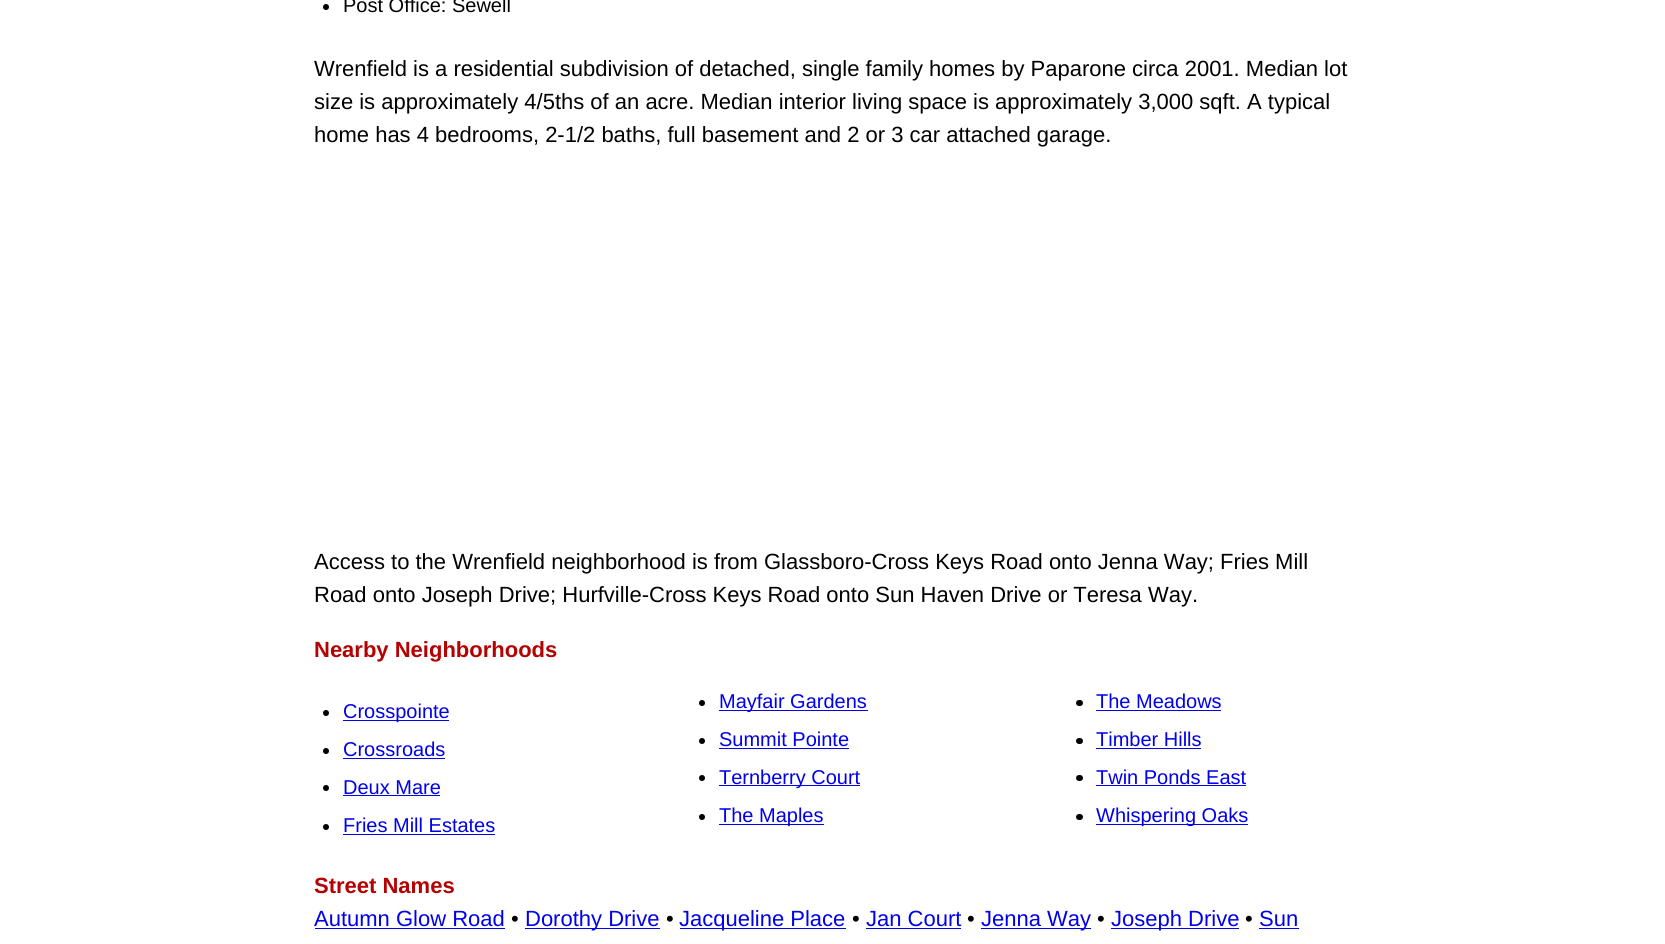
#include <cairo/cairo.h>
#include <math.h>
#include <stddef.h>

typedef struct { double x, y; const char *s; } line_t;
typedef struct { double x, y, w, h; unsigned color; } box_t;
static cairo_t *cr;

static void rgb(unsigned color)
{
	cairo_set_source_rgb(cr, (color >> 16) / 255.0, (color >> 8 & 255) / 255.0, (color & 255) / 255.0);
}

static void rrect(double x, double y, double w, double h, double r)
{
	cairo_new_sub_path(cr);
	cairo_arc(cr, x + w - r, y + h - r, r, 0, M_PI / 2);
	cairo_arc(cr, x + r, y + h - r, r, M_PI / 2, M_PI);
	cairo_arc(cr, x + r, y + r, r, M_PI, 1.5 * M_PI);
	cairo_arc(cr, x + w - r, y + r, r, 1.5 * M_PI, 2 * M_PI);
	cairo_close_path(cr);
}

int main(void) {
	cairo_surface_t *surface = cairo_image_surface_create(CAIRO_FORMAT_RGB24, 1665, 944);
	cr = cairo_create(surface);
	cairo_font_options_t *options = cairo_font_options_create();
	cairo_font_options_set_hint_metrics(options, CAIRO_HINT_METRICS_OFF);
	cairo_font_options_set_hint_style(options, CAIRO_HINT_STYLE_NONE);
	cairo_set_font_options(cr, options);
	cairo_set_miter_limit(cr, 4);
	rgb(0xffffff);
	cairo_paint(cr);
	rgb(0x000000);
	cairo_arc(cr, 326, 7, 3, 0, 2 * M_PI);
	cairo_fill(cr);
	cairo_arc(cr, 702, 703, 3, 0, 2 * M_PI);
	cairo_fill(cr);
	rgb(0x0000ee);
	cairo_rectangle(cr, 719, 710, 149, 1);
	cairo_fill(cr);
	rgb(0x000000);
	rrect(1076, 700, 7, 6, 3);
	cairo_fill(cr);
	rgb(0x0000ee);
	cairo_rectangle(cr, 1096, 710, 125, 1);
	cairo_fill(cr);
	rgb(0x000000);
	cairo_arc(cr, 326, 713, 3, 0, 2 * M_PI);
	cairo_fill(cr);
	rgb(0x0000ee);
	cairo_rectangle(cr, 343, 720, 106, 1);
	cairo_fill(cr);
	rgb(0x000000);
	cairo_arc(cr, 702, 741, 3, 0, 2 * M_PI);
	cairo_fill(cr);
	rgb(0x0000ee);
	cairo_rectangle(cr, 719, 748, 130, 1);
	cairo_fill(cr);
	rgb(0x000000);
	rrect(1076, 738, 7, 6, 3);
	cairo_fill(cr);
	rgb(0x0000ee);
	cairo_rectangle(cr, 1096, 748, 105, 1);
	cairo_fill(cr);
	rgb(0x000000);
	cairo_arc(cr, 326, 751, 3, 0, 2 * M_PI);
	cairo_fill(cr);
	rgb(0x0000ee);
	cairo_rectangle(cr, 343, 758, 102, 1);
	cairo_fill(cr);
	rgb(0x000000);
	cairo_arc(cr, 702, 778, 3, 0, 2 * M_PI);
	cairo_fill(cr);
	rgb(0x0000ee);
	cairo_rectangle(cr, 719, 785, 141, 1);
	cairo_fill(cr);
	rgb(0x000000);
	rrect(1076, 775, 7, 6, 3);
	cairo_fill(cr);
	rgb(0x0000ee);
	cairo_rectangle(cr, 1096, 785, 150, 1);
	cairo_fill(cr);
	rgb(0x000000);
	cairo_arc(cr, 326, 788, 3, 0, 2 * M_PI);
	cairo_fill(cr);
	rgb(0x0000ee);
	cairo_rectangle(cr, 343, 795, 97, 1);
	cairo_fill(cr);
	rgb(0x000000);
	cairo_arc(cr, 326, 827, 3, 0, 2 * M_PI);
	cairo_fill(cr);
	rgb(0x0000ee);
	cairo_rectangle(cr, 343, 834, 152, 1);
	cairo_fill(cr);
	rgb(0x000000);
	cairo_arc(cr, 702, 817, 3, 0, 2 * M_PI);
	cairo_fill(cr);
	rgb(0x0000ee);
	cairo_rectangle(cr, 719, 824, 105, 1);
	cairo_fill(cr);
	rgb(0x000000);
	rrect(1076, 814, 7, 6, 3);
	cairo_fill(cr);
	{
		static const box_t items[] = {
			{1096, 824, 152, 1, 0x0000ee},
			{315, 928, 190, 1, 0x0000ee},
			{525, 928, 135, 1, 0x0000ee},
			{680, 928, 166, 1, 0x0000ee},
			{866, 928, 95, 1, 0x0000ee},
			{981, 928, 110, 1, 0x0000ee},
			{1111, 928, 128, 1, 0x0000ee},
			{1259, 928, 40, 1, 0x0000ee},
		};
		for (size_t i = 0; i < sizeof items / sizeof *items; i++) {
			rgb(items[i].color);
			cairo_rectangle(cr, items[i].x, items[i].y, items[i].w, items[i].h);
			cairo_fill(cr);
		}
	}
	cairo_select_font_face(cr, "Liberation Sans", CAIRO_FONT_SLANT_NORMAL, CAIRO_FONT_WEIGHT_NORMAL);
	cairo_set_font_size(cr, 20);
	rgb(0x000000);
	cairo_move_to(cr, 343, 12);
	cairo_show_text(cr, "Post Office: Sewell");
	cairo_set_font_size(cr, 22);
	{
		static const line_t items[] = {
			{314, 76, "Wrenfield is a residential subdivision of detached, single family homes by Paparone circa 2001. Median lot"},
			{314, 109, "size is approximately 4/5ths of an acre. Median interior living space is approximately 3,000 sqft. A typical"},
			{314, 142, "home has 4 bedrooms, 2-1/2 baths, full basement and 2 or 3 car attached garage."},
			{314, 569, "Access to the Wrenfield neighborhood is from Glassboro-Cross Keys Road onto Jenna Way; Fries Mill"},
			{314, 602, "Road onto Joseph Drive; Hurfville-Cross Keys Road onto Sun Haven Drive or Teresa Way."},
		};
		for (size_t i = 0; i < sizeof items / sizeof *items; i++) {
			cairo_move_to(cr, items[i].x, items[i].y);
			cairo_show_text(cr, items[i].s);
		}
	}
	cairo_select_font_face(cr, "Liberation Sans", CAIRO_FONT_SLANT_NORMAL, CAIRO_FONT_WEIGHT_BOLD);
	rgb(0xb40101);
	cairo_move_to(cr, 314, 657);
	cairo_show_text(cr, "Nearby Neighborhoods");
	cairo_select_font_face(cr, "Liberation Sans", CAIRO_FONT_SLANT_NORMAL, CAIRO_FONT_WEIGHT_NORMAL);
	cairo_set_font_size(cr, 20);
	rgb(0x0000ee);
	{
		static const line_t items[] = {
			{719, 708, "Mayfair Gardens"},
			{1096, 708, "The Meadows"},
			{343, 718, "Crosspointe"},
			{719, 746, "Summit Pointe"},
			{1096, 746, "Timber Hills"},
			{343, 756, "Crossroads"},
			{719, 784, "Ternberry Court"},
			{1096, 784, "Twin Ponds East"},
			{343, 794, "Deux Mare"},
			{343, 832, "Fries Mill Estates"},
			{719, 822, "The Maples"},
			{1096, 822, "Whispering Oaks"},
		};
		for (size_t i = 0; i < sizeof items / sizeof *items; i++) {
			cairo_move_to(cr, items[i].x, items[i].y);
			cairo_show_text(cr, items[i].s);
		}
	}
	cairo_select_font_face(cr, "Liberation Sans", CAIRO_FONT_SLANT_NORMAL, CAIRO_FONT_WEIGHT_BOLD);
	cairo_set_font_size(cr, 22);
	rgb(0xb40101);
	cairo_move_to(cr, 314, 893);
	cairo_show_text(cr, "Street Names");
	cairo_select_font_face(cr, "Liberation Sans", CAIRO_FONT_SLANT_NORMAL, CAIRO_FONT_WEIGHT_NORMAL);
	rgb(0x0000ee);
	cairo_move_to(cr, 314, 926);
	cairo_show_text(cr, "Autumn Glow Road");
	rgb(0x000000);
	cairo_move_to(cr, 511, 926);
	cairo_show_text(cr, "•");
	rgb(0x0000ee);
	cairo_move_to(cr, 525, 926);
	cairo_show_text(cr, "Dorothy Drive");
	rgb(0x000000);
	cairo_move_to(cr, 666, 926);
	cairo_show_text(cr, "•");
	rgb(0x0000ee);
	cairo_move_to(cr, 679, 926);
	cairo_show_text(cr, "Jacqueline Place");
	rgb(0x000000);
	cairo_move_to(cr, 852, 926);
	cairo_show_text(cr, "•");
	rgb(0x0000ee);
	cairo_move_to(cr, 866, 926);
	cairo_show_text(cr, "Jan Court");
	rgb(0x000000);
	cairo_move_to(cr, 967, 926);
	cairo_show_text(cr, "•");
	rgb(0x0000ee);
	cairo_move_to(cr, 981, 926);
	cairo_show_text(cr, "Jenna Way");
	rgb(0x000000);
	cairo_move_to(cr, 1097, 926);
	cairo_show_text(cr, "•");
	rgb(0x0000ee);
	cairo_move_to(cr, 1111, 926);
	cairo_show_text(cr, "Joseph Drive");
	rgb(0x000000);
	cairo_move_to(cr, 1245, 926);
	cairo_show_text(cr, "•");
	rgb(0x0000ee);
	cairo_move_to(cr, 1259, 926);
	cairo_show_text(cr, "Sun");
	cairo_surface_write_to_png(surface, "page.png");
	cairo_font_options_destroy(options);
	cairo_destroy(cr);
	cairo_surface_destroy(surface);
	return 0;
}
